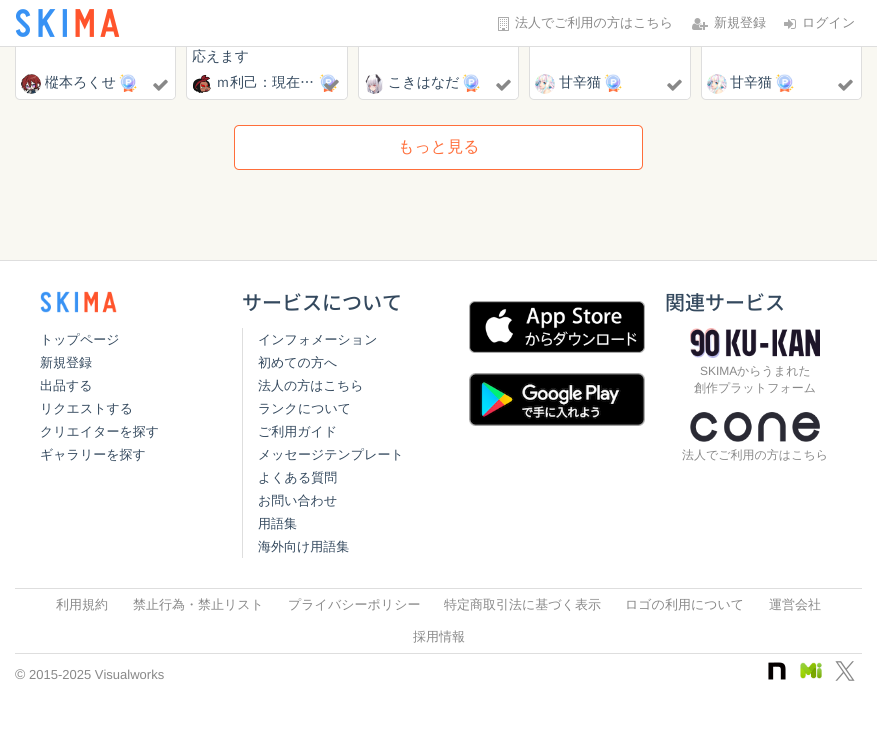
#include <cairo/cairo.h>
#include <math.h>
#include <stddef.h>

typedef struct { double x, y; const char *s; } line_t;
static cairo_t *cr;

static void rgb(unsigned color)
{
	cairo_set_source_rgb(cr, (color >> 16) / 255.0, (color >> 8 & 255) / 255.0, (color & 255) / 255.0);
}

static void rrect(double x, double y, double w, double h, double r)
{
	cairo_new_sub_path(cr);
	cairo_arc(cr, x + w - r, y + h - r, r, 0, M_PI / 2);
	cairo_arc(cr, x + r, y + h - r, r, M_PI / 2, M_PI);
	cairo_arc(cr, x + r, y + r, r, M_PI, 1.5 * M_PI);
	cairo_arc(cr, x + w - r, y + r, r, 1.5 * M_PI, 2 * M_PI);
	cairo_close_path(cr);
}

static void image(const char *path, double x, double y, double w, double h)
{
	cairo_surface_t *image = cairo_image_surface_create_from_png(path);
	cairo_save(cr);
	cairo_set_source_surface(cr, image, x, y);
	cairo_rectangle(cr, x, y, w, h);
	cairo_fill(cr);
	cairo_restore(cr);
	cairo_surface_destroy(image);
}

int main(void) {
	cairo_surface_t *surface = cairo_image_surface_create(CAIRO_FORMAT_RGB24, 877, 755);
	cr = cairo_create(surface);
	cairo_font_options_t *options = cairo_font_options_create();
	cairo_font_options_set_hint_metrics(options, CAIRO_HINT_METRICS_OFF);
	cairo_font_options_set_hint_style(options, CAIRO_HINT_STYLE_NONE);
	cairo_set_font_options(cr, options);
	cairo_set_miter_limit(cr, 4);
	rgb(0xffffff);
	cairo_paint(cr);
	rgb(0xf9f8f2);
	cairo_rectangle(cr, 0, 47, 877, 213);
	cairo_fill(cr);
	rgb(0xffffff);
	rrect(15.5, -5.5, 160, 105, 4.5);
	cairo_fill_preserve(cr);
	rgb(0xdedede);
	cairo_set_line_width(cr, 1);
	cairo_stroke(cr);
	rgb(0xffffff);
	rrect(186.5, -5.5, 161, 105, 4.5);
	cairo_fill_preserve(cr);
	rgb(0xdedede);
	cairo_stroke(cr);
	rgb(0xffffff);
	rrect(358.5, -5.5, 160, 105, 4.5);
	cairo_fill_preserve(cr);
	rgb(0xdedede);
	cairo_stroke(cr);
	rgb(0xffffff);
	rrect(529.5, -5.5, 161, 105, 4.5);
	cairo_fill_preserve(cr);
	rgb(0xdedede);
	cairo_stroke(cr);
	rgb(0xffffff);
	rrect(701.5, -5.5, 160, 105, 4.5);
	cairo_fill_preserve(cr);
	rgb(0xdedede);
	cairo_stroke(cr);
	rgb(0xffffff);
	cairo_rectangle(cr, 15, 0, 847, 46);
	cairo_fill(cr);
	rgb(0xdedede);
	cairo_rectangle(cr, 0, 46, 877, 1);
	cairo_fill(cr);
	image("img/1.png", 15, 9, 105, 28);
	image("img/2.png", 498, 17, 11, 14);
	image("img/3.png", 692, 18, 16, 12);
	image("img/4.png", 784, 19, 12, 10);
	image("img/5.png", 21, 74, 20, 20);
	image("img/6.png", 119, 74, 18, 18);
	rrect(145.5, 69.5, 29, 29, 3.5);
	rgb(0xffffff);
	cairo_stroke(cr);
	image("img/7.png", 153, 79, 15, 12);
	image("img/8.png", 193, 74, 18, 19);
	image("img/9.png", 319, 74, 18, 18);
	rrect(317.5, 69.5, 29, 29, 3.5);
	cairo_stroke(cr);
	image("img/10.png", 324, 79, 15, 12);
	image("img/11.png", 365, 74, 18, 20);
	image("img/6.png", 462, 74, 18, 18);
	rrect(488.5, 69.5, 29, 29, 3.5);
	cairo_stroke(cr);
	image("img/7.png", 496, 79, 15, 12);
	image("img/12.png", 535, 74, 20, 20);
	image("img/6.png", 604, 74, 18, 18);
	rrect(660.5, 69.5, 29, 29, 3.5);
	cairo_stroke(cr);
	image("img/7.png", 667, 79, 15, 12);
	image("img/12.png", 707, 74, 20, 20);
	image("img/13.png", 775, 74, 19, 18);
	rrect(831.5, 69.5, 29, 29, 3.5);
	cairo_stroke(cr);
	image("img/7.png", 838, 79, 15, 12);
	rrect(234.5, 125.5, 408, 44, 4.5);
	cairo_fill_preserve(cr);
	rgb(0xff6e3a);
	cairo_stroke(cr);
	rgb(0xdedede);
	cairo_rectangle(cr, 0, 260, 877, 1);
	cairo_fill(cr);
	cairo_rectangle(cr, 15, 588, 847, 1);
	cairo_fill(cr);
	image("img/14.png", 40, 291, 77, 22);
	cairo_rectangle(cr, 242, 328, 1, 230);
	cairo_fill(cr);
	image("img/15.png", 469, 301, 176, 52);
	image("img/16.png", 469, 373, 176, 53);
	image("img/17.png", 690, 328, 130, 30);
	image("img/18.png", 690, 412, 130, 30);
	cairo_rectangle(cr, 15, 653, 847, 1);
	cairo_fill(cr);
	image("img/19.png", 768, 662, 18, 18);
	image("img/20.png", 800, 662, 22, 17);
	image("img/21.png", 835, 661, 20, 20);
	cairo_select_font_face(cr, "WenQuanYi Zen Hei Medium", CAIRO_FONT_SLANT_NORMAL, CAIRO_FONT_WEIGHT_NORMAL);
	cairo_set_font_size(cr, 13);
	rgb(0x888888);
	{
		static const line_t items[] = {
			{515, 27, "法人でご利用の方はこちら"},
			{714, 27, "新規登録"},
			{802, 27, "ログイン"},
		};
		for (size_t i = 0; i < sizeof items / sizeof *items; i++) {
			cairo_move_to(cr, items[i].x, items[i].y);
			cairo_show_text(cr, items[i].s);
		}
	}
	cairo_set_font_size(cr, 14);
	rgb(0x34495e);
	{
		static const line_t items[] = {
			{45, 87, "樅本ろくせ"},
			{192, 61, "応えます"},
			{216, 87, "ｍ利己：現在…"},
			{388, 87, "こきはなだ"},
			{559, 87, "甘辛猫"},
			{730, 87, "甘辛猫"},
		};
		for (size_t i = 0; i < sizeof items / sizeof *items; i++) {
			cairo_move_to(cr, items[i].x, items[i].y);
			cairo_show_text(cr, items[i].s);
		}
	}
	cairo_set_font_size(cr, 16);
	rgb(0xff6e3a);
	cairo_move_to(cr, 398, 152);
	cairo_show_text(cr, "もっと見る");
	cairo_set_font_size(cr, 13);
	rgb(0x34495e);
	{
		static const line_t items[] = {
			{40, 344, "トップページ"},
			{40, 367, "新規登録"},
			{40, 390, "出品する"},
			{40, 413, "リクエストする"},
			{40, 436, "クリエイターを探す"},
			{40, 459, "ギャラリーを探す"},
		};
		for (size_t i = 0; i < sizeof items / sizeof *items; i++) {
			cairo_move_to(cr, items[i].x, items[i].y);
			cairo_show_text(cr, items[i].s);
		}
	}
	cairo_select_font_face(cr, "Noto Sans JP Medium", CAIRO_FONT_SLANT_NORMAL, CAIRO_FONT_WEIGHT_NORMAL);
	cairo_set_font_size(cr, 20);
	cairo_move_to(cr, 242, 310);
	cairo_show_text(cr, "サービスについて");
	cairo_select_font_face(cr, "WenQuanYi Zen Hei Medium", CAIRO_FONT_SLANT_NORMAL, CAIRO_FONT_WEIGHT_NORMAL);
	cairo_set_font_size(cr, 13);
	{
		static const line_t items[] = {
			{258, 344, "インフォメーション"},
			{258, 367, "初めての方へ"},
			{258, 390, "法人の方はこちら"},
			{258, 413, "ランクについて"},
			{258, 436, "ご利用ガイド"},
			{258, 459, "メッセージテンプレート"},
			{258, 482, "よくある質問"},
			{258, 505, "お問い合わせ"},
			{258, 528, "用語集"},
			{258, 551, "海外向け用語集"},
		};
		for (size_t i = 0; i < sizeof items / sizeof *items; i++) {
			cairo_move_to(cr, items[i].x, items[i].y);
			cairo_show_text(cr, items[i].s);
		}
	}
	cairo_select_font_face(cr, "Noto Sans JP Medium", CAIRO_FONT_SLANT_NORMAL, CAIRO_FONT_WEIGHT_NORMAL);
	cairo_set_font_size(cr, 20);
	cairo_move_to(cr, 665, 310);
	cairo_show_text(cr, "関連サービス");
	cairo_select_font_face(cr, "Liberation Sans", CAIRO_FONT_SLANT_NORMAL, CAIRO_FONT_WEIGHT_NORMAL);
	cairo_set_font_size(cr, 12);
	rgb(0x888888);
	cairo_move_to(cr, 700, 375);
	cairo_show_text(cr, "SKIMA");
	cairo_select_font_face(cr, "WenQuanYi Zen Hei Medium", CAIRO_FONT_SLANT_NORMAL, CAIRO_FONT_WEIGHT_NORMAL);
	{
		static const line_t items[] = {
			{737, 375, "からうまれた"},
			{694, 392, "創作プラットフォーム"},
			{682, 459, "法人でご利用の方はこちら"},
		};
		for (size_t i = 0; i < sizeof items / sizeof *items; i++) {
			cairo_move_to(cr, items[i].x, items[i].y);
			cairo_show_text(cr, items[i].s);
		}
	}
	cairo_set_font_size(cr, 13);
	{
		static const line_t items[] = {
			{56, 609, "利用規約"},
			{133, 609, "禁止行為・禁止リスト"},
			{288, 609, "プライバシーポリシー"},
			{444, 609, "特定商取引法に基づく表示"},
			{625, 609, "ロゴの利用について"},
			{769, 609, "運営会社"},
			{413, 641, "採用情報"},
		};
		for (size_t i = 0; i < sizeof items / sizeof *items; i++) {
			cairo_move_to(cr, items[i].x, items[i].y);
			cairo_show_text(cr, items[i].s);
		}
	}
	cairo_select_font_face(cr, "Liberation Sans", CAIRO_FONT_SLANT_NORMAL, CAIRO_FONT_WEIGHT_NORMAL);
	cairo_set_font_size(cr, 14);
	cairo_move_to(cr, 15, 679);
	cairo_show_text(cr, "©");
	cairo_set_font_size(cr, 13);
	cairo_move_to(cr, 29, 679);
	cairo_show_text(cr, "2015-2025 Visualworks");
	cairo_surface_write_to_png(surface, "page.png");
	cairo_font_options_destroy(options);
	cairo_destroy(cr);
	cairo_surface_destroy(surface);
	return 0;
}
